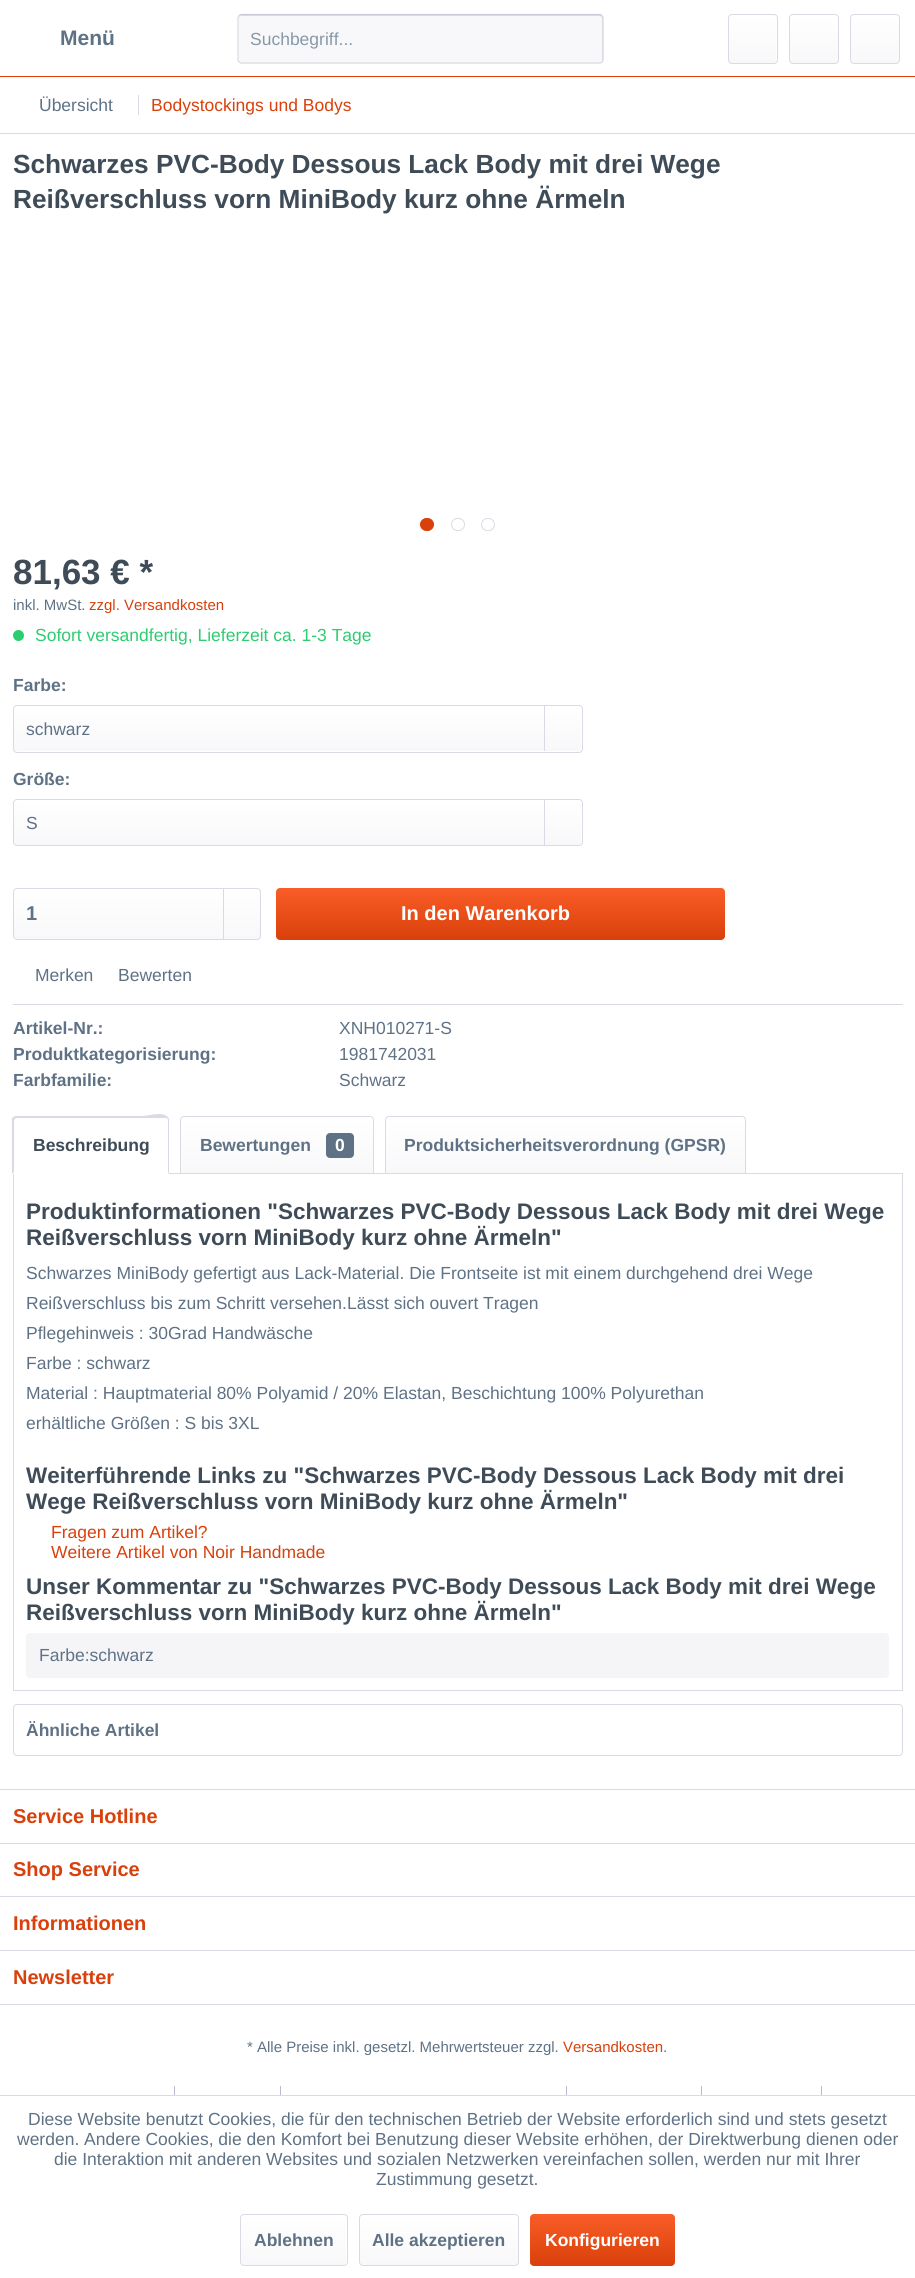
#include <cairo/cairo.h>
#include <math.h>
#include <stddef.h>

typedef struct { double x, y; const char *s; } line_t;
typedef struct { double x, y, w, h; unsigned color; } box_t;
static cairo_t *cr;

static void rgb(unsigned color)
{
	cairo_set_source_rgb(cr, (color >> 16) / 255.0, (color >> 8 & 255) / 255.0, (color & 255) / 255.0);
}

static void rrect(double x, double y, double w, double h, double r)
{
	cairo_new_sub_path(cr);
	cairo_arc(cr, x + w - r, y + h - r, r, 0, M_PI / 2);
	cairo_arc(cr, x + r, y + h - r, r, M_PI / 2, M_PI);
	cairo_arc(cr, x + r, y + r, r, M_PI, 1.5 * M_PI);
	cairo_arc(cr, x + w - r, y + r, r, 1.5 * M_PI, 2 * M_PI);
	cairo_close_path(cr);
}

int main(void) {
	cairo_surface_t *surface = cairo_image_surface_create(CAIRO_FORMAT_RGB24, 915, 2278);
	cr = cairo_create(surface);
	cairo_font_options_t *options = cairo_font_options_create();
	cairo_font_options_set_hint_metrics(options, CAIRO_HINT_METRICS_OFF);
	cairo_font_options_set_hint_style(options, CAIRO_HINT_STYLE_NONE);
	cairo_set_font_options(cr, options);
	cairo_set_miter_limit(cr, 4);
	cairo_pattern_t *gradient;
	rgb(0xffffff);
	cairo_paint(cr);
	rgb(0xd9400b);
	cairo_rectangle(cr, 0, 76, 915, 1);
	cairo_fill(cr);
	rgb(0xf8f8fa);
	rrect(238, 14, 366, 50, 4);
	cairo_fill(cr);
	rgb(0xdadae5);
	cairo_new_path(cr);
	cairo_move_to(cr, 241, 16);
	cairo_line_to(cr, 600, 16);
	cairo_curve_to(cr, 601, 16, 602, 17, 602, 19);
	cairo_line_to(cr, 602, 63);
	cairo_curve_to(cr, 602, 62, 603, 61, 603, 60);
	cairo_line_to(cr, 603, 18);
	cairo_curve_to(cr, 603, 16, 602, 15, 600, 15);
	cairo_line_to(cr, 242, 15);
	cairo_curve_to(cr, 240, 15, 239, 16, 239, 18);
	cairo_line_to(cr, 239, 19);
	cairo_curve_to(cr, 239, 17, 240, 16, 241, 16);
	cairo_close_path(cr);
	cairo_fill(cr);
	cairo_new_path(cr);
	cairo_move_to(cr, 239, 15.5);
	cairo_line_to(cr, 241, 14.5);
	cairo_line_to(cr, 600, 14.5);
	cairo_line_to(cr, 602, 15.5);
	rgb(0xcbcbdb);
	cairo_set_line_width(cr, 1.2);
	cairo_stroke(cr);
	cairo_new_path(cr);
	cairo_move_to(cr, 602, 15.5);
	cairo_line_to(cr, 603, 17.5);
	cairo_line_to(cr, 603, 60);
	cairo_line_to(cr, 602, 62);
	cairo_line_to(cr, 600, 63);
	cairo_line_to(cr, 241, 63);
	cairo_line_to(cr, 239, 62);
	cairo_line_to(cr, 238, 60);
	cairo_line_to(cr, 238, 17.5);
	cairo_line_to(cr, 239, 15.5);
	rgb(0xdadae5);
	cairo_stroke(cr);
	gradient = cairo_pattern_create_linear(753, 15, 753, 63);
	cairo_pattern_add_color_stop_rgba(gradient, 0, 1, 1, 1, 1);
	cairo_pattern_add_color_stop_rgba(gradient, 1, 0.973, 0.973, 0.98, 1);
	cairo_set_source(cr, gradient);
	cairo_pattern_destroy(gradient);
	rrect(729, 15, 47, 48, 2.5);
	cairo_fill(cr);
	rrect(728.5, 14.5, 49, 49, 3.5);
	rgb(0xdadae5);
	cairo_set_line_width(cr, 1);
	cairo_stroke(cr);
	gradient = cairo_pattern_create_linear(814, 15, 814, 63);
	cairo_pattern_add_color_stop_rgba(gradient, 0, 1, 1, 1, 1);
	cairo_pattern_add_color_stop_rgba(gradient, 1, 0.973, 0.973, 0.98, 1);
	cairo_set_source(cr, gradient);
	cairo_pattern_destroy(gradient);
	rrect(790, 15, 48, 48, 2.5);
	cairo_fill(cr);
	rrect(789.5, 14.5, 49, 49, 3.5);
	rgb(0xdadae5);
	cairo_stroke(cr);
	gradient = cairo_pattern_create_linear(875, 15, 875, 63);
	cairo_pattern_add_color_stop_rgba(gradient, 0, 1, 1, 1, 1);
	cairo_pattern_add_color_stop_rgba(gradient, 1, 0.973, 0.973, 0.98, 1);
	cairo_set_source(cr, gradient);
	cairo_pattern_destroy(gradient);
	rrect(851, 15, 48, 48, 2.5);
	cairo_fill(cr);
	rrect(850.5, 14.5, 49, 49, 3.5);
	rgb(0xdadae5);
	cairo_stroke(cr);
	cairo_rectangle(cr, 0, 133, 915, 1);
	cairo_fill(cr);
	cairo_rectangle(cr, 138, 95, 1, 20);
	cairo_fill(cr);
	rgb(0xd9400b);
	rrect(420.5, 518.5, 13, 12, 6);
	cairo_fill_preserve(cr);
	cairo_stroke(cr);
	rrect(451.5, 518.5, 13, 12, 6);
	rgb(0xdadae5);
	cairo_stroke(cr);
	rrect(481.5, 518.5, 13, 12, 6);
	cairo_stroke(cr);
	rgb(0x2ecc71);
	cairo_arc(cr, 18.5, 635.5, 5.5, 0, 2 * M_PI);
	cairo_fill(cr);
	gradient = cairo_pattern_create_linear(298, 706, 298, 751);
	cairo_pattern_add_color_stop_rgba(gradient, 0, 1, 1, 1, 1);
	cairo_pattern_add_color_stop_rgba(gradient, 1, 0.973, 0.973, 0.98, 1);
	cairo_set_source(cr, gradient);
	cairo_pattern_destroy(gradient);
	rrect(14, 706, 567, 45, 2.5);
	cairo_fill(cr);
	rrect(13.5, 705.5, 569, 47, 3.5);
	rgb(0xdadae5);
	cairo_stroke(cr);
	cairo_rectangle(cr, 544, 706, 1, 45);
	cairo_fill(cr);
	gradient = cairo_pattern_create_linear(298, 800, 298, 845);
	cairo_pattern_add_color_stop_rgba(gradient, 0, 1, 1, 1, 1);
	cairo_pattern_add_color_stop_rgba(gradient, 1, 0.973, 0.973, 0.98, 1);
	cairo_set_source(cr, gradient);
	cairo_pattern_destroy(gradient);
	rrect(14, 800, 567, 45, 2.5);
	cairo_fill(cr);
	rrect(13.5, 799.5, 569, 46, 3.5);
	rgb(0xdadae5);
	cairo_stroke(cr);
	cairo_rectangle(cr, 544, 800, 1, 45);
	cairo_fill(cr);
	gradient = cairo_pattern_create_linear(137, 889, 137, 939);
	cairo_pattern_add_color_stop_rgba(gradient, 0, 1, 1, 1, 1);
	cairo_pattern_add_color_stop_rgba(gradient, 1, 0.973, 0.973, 0.98, 1);
	cairo_set_source(cr, gradient);
	cairo_pattern_destroy(gradient);
	rrect(14, 889, 246, 50, 2.5);
	cairo_fill(cr);
	rrect(13.5, 888.5, 247, 51, 3.5);
	rgb(0xdadae5);
	cairo_stroke(cr);
	cairo_rectangle(cr, 223, 889, 1, 50);
	cairo_fill(cr);
	gradient = cairo_pattern_create_linear(501, 888, 501, 940);
	cairo_pattern_add_color_stop_rgba(gradient, 0, 0.98, 0.365, 0.153, 1);
	cairo_pattern_add_color_stop_rgba(gradient, 1, 0.851, 0.251, 0.043, 1);
	cairo_set_source(cr, gradient);
	cairo_pattern_destroy(gradient);
	rrect(276, 888, 449, 52, 4);
	cairo_fill(cr);
	rgb(0xdadae5);
	cairo_rectangle(cr, 13, 1004, 890, 1);
	cairo_fill(cr);
	cairo_rectangle(cr, 13.5, 1173.5, 889, 517);
	cairo_stroke(cr);
	rgb(0xffffff);
	cairo_new_path(cr);
	cairo_move_to(cr, 17, 1116);
	cairo_line_to(cr, 165, 1116);
	cairo_curve_to(cr, 167, 1116, 169, 1118, 169, 1120);
	cairo_line_to(cr, 169, 1174);
	cairo_line_to(cr, 13, 1174);
	cairo_line_to(cr, 13, 1120);
	cairo_curve_to(cr, 13, 1118, 15, 1116, 17, 1116);
	cairo_close_path(cr);
	cairo_fill(cr);
	rgb(0xdadae5);
	cairo_new_path(cr);
	cairo_move_to(cr, 16, 1118);
	cairo_line_to(cr, 15, 1119);
	cairo_line_to(cr, 13, 1117);
	cairo_line_to(cr, 15, 1116);
	cairo_line_to(cr, 141, 1116);
	cairo_curve_to(cr, 150, 1116, 161, 1111, 168, 1117);
	cairo_line_to(cr, 167, 1118);
	cairo_line_to(cr, 165, 1118);
	cairo_close_path(cr);
	cairo_fill(cr);
	cairo_new_path(cr);
	cairo_move_to(cr, 168, 1117);
	cairo_line_to(cr, 169, 1119);
	cairo_line_to(cr, 169, 1174);
	cairo_line_to(cr, 167, 1172);
	cairo_line_to(cr, 168, 1172);
	cairo_line_to(cr, 168, 1120);
	cairo_line_to(cr, 167, 1118);
	cairo_close_path(cr);
	cairo_fill(cr);
	rgb(0xffffff);
	cairo_new_path(cr);
	cairo_move_to(cr, 169, 1174);
	cairo_line_to(cr, 167, 1172);
	cairo_line_to(cr, 14, 1172);
	cairo_line_to(cr, 12, 1174);
	cairo_close_path(cr);
	cairo_fill(cr);
	rgb(0xdadae5);
	cairo_new_path(cr);
	cairo_move_to(cr, 12, 1174);
	cairo_line_to(cr, 12, 1118);
	cairo_line_to(cr, 13, 1117);
	cairo_line_to(cr, 15, 1119);
	cairo_line_to(cr, 14, 1120);
	cairo_line_to(cr, 14, 1172);
	cairo_close_path(cr);
	cairo_fill(cr);
	gradient = cairo_pattern_create_linear(277, 1118, 277, 1173);
	cairo_pattern_add_color_stop_rgba(gradient, 0, 1, 1, 1, 1);
	cairo_pattern_add_color_stop_rgba(gradient, 1, 0.973, 0.973, 0.98, 1);
	cairo_set_source(cr, gradient);
	cairo_pattern_destroy(gradient);
	cairo_new_path(cr);
	cairo_move_to(cr, 183.5, 1118);
	cairo_line_to(cr, 370.5, 1118);
	cairo_curve_to(cr, 372, 1118, 373, 1119, 373, 1120.5);
	cairo_line_to(cr, 373, 1173);
	cairo_line_to(cr, 181, 1173);
	cairo_line_to(cr, 181, 1120.5);
	cairo_curve_to(cr, 181, 1119, 182, 1118, 183.5, 1118);
	cairo_close_path(cr);
	cairo_fill(cr);
	cairo_new_path(cr);
	cairo_move_to(cr, 184, 1116.5);
	cairo_line_to(cr, 370, 1116.5);
	cairo_curve_to(cr, 372, 1116.5, 373.5, 1118, 373.5, 1120);
	cairo_line_to(cr, 373.5, 1173.5);
	cairo_line_to(cr, 180.5, 1173.5);
	cairo_line_to(cr, 180.5, 1120);
	cairo_curve_to(cr, 180.5, 1118, 182, 1116.5, 184, 1116.5);
	cairo_close_path(cr);
	rgb(0xdadae5);
	cairo_stroke(cr);
	rgb(0x5f7285);
	rrect(326, 1133, 28, 25, 4);
	cairo_fill(cr);
	gradient = cairo_pattern_create_linear(566, 1118, 566, 1173);
	cairo_pattern_add_color_stop_rgba(gradient, 0, 1, 1, 1, 1);
	cairo_pattern_add_color_stop_rgba(gradient, 1, 0.973, 0.973, 0.98, 1);
	cairo_set_source(cr, gradient);
	cairo_pattern_destroy(gradient);
	cairo_new_path(cr);
	cairo_move_to(cr, 388.5, 1118);
	cairo_line_to(cr, 742.5, 1118);
	cairo_curve_to(cr, 744, 1118, 745, 1119, 745, 1120.5);
	cairo_line_to(cr, 745, 1173);
	cairo_line_to(cr, 386, 1173);
	cairo_line_to(cr, 386, 1120.5);
	cairo_curve_to(cr, 386, 1119, 387, 1118, 388.5, 1118);
	cairo_close_path(cr);
	cairo_fill(cr);
	cairo_new_path(cr);
	cairo_move_to(cr, 389, 1116.5);
	cairo_line_to(cr, 742, 1116.5);
	cairo_curve_to(cr, 744, 1116.5, 745.5, 1118, 745.5, 1120);
	cairo_line_to(cr, 745.5, 1173.5);
	cairo_line_to(cr, 385.5, 1173.5);
	cairo_line_to(cr, 385.5, 1120);
	cairo_curve_to(cr, 385.5, 1118, 387, 1116.5, 389, 1116.5);
	cairo_close_path(cr);
	rgb(0xdadae5);
	cairo_stroke(cr);
	rgb(0xf5f5f8);
	rrect(26, 1633, 863, 45, 4);
	cairo_fill(cr);
	rrect(13.5, 1704.5, 889, 51, 3.5);
	rgb(0xdadae5);
	cairo_stroke(cr);
	{
		static const box_t items[] = {
			{0, 1789, 915, 1, 0xdadae5},
			{0, 1843, 915, 1, 0xdadae5},
			{0, 1896, 915, 1, 0xdadae5},
			{0, 1950, 915, 1, 0xdadae5},
			{0, 2004, 915, 1, 0xdadae5},
			{174, 2086, 1, 13, 0xbcbcd0},
			{280, 2086, 1, 13, 0xbcbcd0},
			{566, 2086, 1, 13, 0xbcbcd0},
			{701, 2086, 1, 13, 0xbcbcd0},
			{821, 2086, 1, 13, 0xbcbcd0},
			{174, 2096, 648, 3, 0xffffff},
			{0, 2095, 915, 1, 0xdadae5},
		};
		for (size_t i = 0; i < sizeof items / sizeof *items; i++) {
			rgb(items[i].color);
			cairo_rectangle(cr, items[i].x, items[i].y, items[i].w, items[i].h);
			cairo_fill(cr);
		}
	}
	gradient = cairo_pattern_create_linear(294, 2215, 294, 2265);
	cairo_pattern_add_color_stop_rgba(gradient, 0, 1, 1, 1, 1);
	cairo_pattern_add_color_stop_rgba(gradient, 1, 0.973, 0.973, 0.98, 1);
	cairo_set_source(cr, gradient);
	cairo_pattern_destroy(gradient);
	rrect(241, 2215, 105, 50, 2.5);
	cairo_fill(cr);
	rrect(240.5, 2214.5, 107, 51, 3.5);
	rgb(0xdadae5);
	cairo_stroke(cr);
	gradient = cairo_pattern_create_linear(439, 2215, 439, 2265);
	cairo_pattern_add_color_stop_rgba(gradient, 0, 1, 1, 1, 1);
	cairo_pattern_add_color_stop_rgba(gradient, 1, 0.973, 0.973, 0.98, 1);
	cairo_set_source(cr, gradient);
	cairo_pattern_destroy(gradient);
	rrect(360, 2215, 158, 50, 2.5);
	cairo_fill(cr);
	rrect(359.5, 2214.5, 159, 51, 3.5);
	rgb(0xdadae5);
	cairo_stroke(cr);
	gradient = cairo_pattern_create_linear(603, 2214, 603, 2266);
	cairo_pattern_add_color_stop_rgba(gradient, 0, 0.98, 0.365, 0.153, 1);
	cairo_pattern_add_color_stop_rgba(gradient, 1, 0.851, 0.251, 0.043, 1);
	cairo_set_source(cr, gradient);
	cairo_pattern_destroy(gradient);
	rrect(530, 2214, 145, 52, 4);
	cairo_fill(cr);
	cairo_select_font_face(cr, "Liberation Sans", CAIRO_FONT_SLANT_NORMAL, CAIRO_FONT_WEIGHT_BOLD);
	cairo_set_font_size(cr, 21);
	rgb(0x5f7285);
	cairo_move_to(cr, 60, 45);
	cairo_show_text(cr, "Menü");
	cairo_select_font_face(cr, "Liberation Sans", CAIRO_FONT_SLANT_NORMAL, CAIRO_FONT_WEIGHT_NORMAL);
	cairo_set_font_size(cr, 17.5);
	rgb(0x8798a9);
	cairo_move_to(cr, 250, 45);
	cairo_show_text(cr, "Suchbegriff...");
	rgb(0x5f7285);
	cairo_move_to(cr, 39, 111);
	cairo_show_text(cr, "Übersicht");
	rgb(0xd9400b);
	cairo_move_to(cr, 151, 111);
	cairo_show_text(cr, "Bodystockings und Bodys");
	cairo_select_font_face(cr, "Liberation Sans", CAIRO_FONT_SLANT_NORMAL, CAIRO_FONT_WEIGHT_BOLD);
	cairo_set_font_size(cr, 26.25);
	rgb(0x3f4c58);
	cairo_move_to(cr, 13, 173);
	cairo_show_text(cr, "Schwarzes PVC-Body Dessous Lack Body mit drei Wege");
	cairo_move_to(cr, 13, 208);
	cairo_show_text(cr, "Reißverschluss vorn MiniBody kurz ohne Ärmeln");
	cairo_set_font_size(cr, 35);
	cairo_move_to(cr, 13, 584);
	cairo_show_text(cr, "81,63 € *");
	cairo_select_font_face(cr, "Liberation Sans", CAIRO_FONT_SLANT_NORMAL, CAIRO_FONT_WEIGHT_NORMAL);
	cairo_set_font_size(cr, 15);
	rgb(0x5f7285);
	cairo_move_to(cr, 13, 610);
	cairo_show_text(cr, "inkl. MwSt.");
	rgb(0xd9400b);
	cairo_move_to(cr, 89, 610);
	cairo_show_text(cr, "zzgl. Versandkosten");
	cairo_set_font_size(cr, 17.5);
	rgb(0x2ecc71);
	cairo_move_to(cr, 35, 641);
	cairo_show_text(cr, "Sofort versandfertig, Lieferzeit ca. 1-3 Tage");
	cairo_select_font_face(cr, "Liberation Sans", CAIRO_FONT_SLANT_NORMAL, CAIRO_FONT_WEIGHT_BOLD);
	rgb(0x5f7285);
	cairo_move_to(cr, 13, 691);
	cairo_show_text(cr, "Farbe:");
	cairo_select_font_face(cr, "Liberation Sans", CAIRO_FONT_SLANT_NORMAL, CAIRO_FONT_WEIGHT_NORMAL);
	cairo_move_to(cr, 26, 735);
	cairo_show_text(cr, "schwarz");
	cairo_select_font_face(cr, "Liberation Sans", CAIRO_FONT_SLANT_NORMAL, CAIRO_FONT_WEIGHT_BOLD);
	cairo_move_to(cr, 13, 785);
	cairo_show_text(cr, "Größe:");
	cairo_select_font_face(cr, "Liberation Sans", CAIRO_FONT_SLANT_NORMAL, CAIRO_FONT_WEIGHT_NORMAL);
	cairo_move_to(cr, 26, 829);
	cairo_show_text(cr, "S");
	cairo_select_font_face(cr, "Liberation Sans", CAIRO_FONT_SLANT_NORMAL, CAIRO_FONT_WEIGHT_BOLD);
	cairo_set_font_size(cr, 20);
	cairo_move_to(cr, 26, 920);
	cairo_show_text(cr, "1");
	rgb(0xffffff);
	cairo_move_to(cr, 401, 920);
	cairo_show_text(cr, "In den Warenkorb");
	cairo_select_font_face(cr, "Liberation Sans", CAIRO_FONT_SLANT_NORMAL, CAIRO_FONT_WEIGHT_NORMAL);
	cairo_set_font_size(cr, 17.5);
	rgb(0x5f7285);
	cairo_move_to(cr, 35, 981);
	cairo_show_text(cr, "Merken");
	cairo_move_to(cr, 118, 981);
	cairo_show_text(cr, "Bewerten");
	cairo_select_font_face(cr, "Liberation Sans", CAIRO_FONT_SLANT_NORMAL, CAIRO_FONT_WEIGHT_BOLD);
	cairo_move_to(cr, 13, 1034);
	cairo_show_text(cr, "Artikel-Nr.:");
	cairo_select_font_face(cr, "Liberation Sans", CAIRO_FONT_SLANT_NORMAL, CAIRO_FONT_WEIGHT_NORMAL);
	cairo_move_to(cr, 339, 1034);
	cairo_show_text(cr, "XNH010271-S");
	cairo_select_font_face(cr, "Liberation Sans", CAIRO_FONT_SLANT_NORMAL, CAIRO_FONT_WEIGHT_BOLD);
	cairo_move_to(cr, 13, 1060);
	cairo_show_text(cr, "Produktkategorisierung:");
	cairo_select_font_face(cr, "Liberation Sans", CAIRO_FONT_SLANT_NORMAL, CAIRO_FONT_WEIGHT_NORMAL);
	cairo_move_to(cr, 339, 1060);
	cairo_show_text(cr, "1981742031");
	cairo_select_font_face(cr, "Liberation Sans", CAIRO_FONT_SLANT_NORMAL, CAIRO_FONT_WEIGHT_BOLD);
	cairo_move_to(cr, 13, 1086);
	cairo_show_text(cr, "Farbfamilie:");
	cairo_select_font_face(cr, "Liberation Sans", CAIRO_FONT_SLANT_NORMAL, CAIRO_FONT_WEIGHT_NORMAL);
	cairo_move_to(cr, 339, 1086);
	cairo_show_text(cr, "Schwarz");
	cairo_select_font_face(cr, "Liberation Sans", CAIRO_FONT_SLANT_NORMAL, CAIRO_FONT_WEIGHT_BOLD);
	rgb(0x3f4c58);
	cairo_move_to(cr, 33, 1151);
	cairo_show_text(cr, "Beschreibung");
	rgb(0x5f7285);
	cairo_move_to(cr, 200, 1151);
	cairo_show_text(cr, "Bewertungen");
	rgb(0xffffff);
	cairo_move_to(cr, 335, 1151);
	cairo_show_text(cr, "0");
	rgb(0x5f7285);
	cairo_move_to(cr, 404, 1151);
	cairo_show_text(cr, "Produktsicherheitsverordnung (GPSR)");
	cairo_set_font_size(cr, 22.5);
	rgb(0x3f4c58);
	cairo_move_to(cr, 26, 1219);
	cairo_show_text(cr, "Produktinformationen \"Schwarzes PVC-Body Dessous Lack Body mit drei Wege");
	cairo_move_to(cr, 26, 1245);
	cairo_show_text(cr, "Reißverschluss vorn MiniBody kurz ohne Ärmeln\"");
	cairo_select_font_face(cr, "Liberation Sans", CAIRO_FONT_SLANT_NORMAL, CAIRO_FONT_WEIGHT_NORMAL);
	cairo_set_font_size(cr, 17.5);
	rgb(0x5f7285);
	{
		static const line_t items[] = {
			{26, 1279, "Schwarzes MiniBody gefertigt aus Lack-Material. Die Frontseite ist mit einem durchgehend drei Wege"},
			{26, 1309, "Reißverschluss bis zum Schritt versehen.Lässt sich ouvert Tragen"},
			{26, 1339, "Pflegehinweis : 30Grad Handwäsche"},
			{26, 1369, "Farbe : schwarz"},
			{26, 1399, "Material : Hauptmaterial 80% Polyamid / 20% Elastan, Beschichtung 100% Polyurethan"},
			{26, 1429, "erhältliche Größen : S bis 3XL"},
		};
		for (size_t i = 0; i < sizeof items / sizeof *items; i++) {
			cairo_move_to(cr, items[i].x, items[i].y);
			cairo_show_text(cr, items[i].s);
		}
	}
	cairo_select_font_face(cr, "Liberation Sans", CAIRO_FONT_SLANT_NORMAL, CAIRO_FONT_WEIGHT_BOLD);
	cairo_set_font_size(cr, 22.5);
	rgb(0x3f4c58);
	cairo_move_to(cr, 26, 1483);
	cairo_show_text(cr, "Weiterführende Links zu \"Schwarzes PVC-Body Dessous Lack Body mit drei");
	cairo_move_to(cr, 26, 1509);
	cairo_show_text(cr, "Wege Reißverschluss vorn MiniBody kurz ohne Ärmeln\"");
	cairo_select_font_face(cr, "Liberation Sans", CAIRO_FONT_SLANT_NORMAL, CAIRO_FONT_WEIGHT_NORMAL);
	cairo_set_font_size(cr, 17.5);
	rgb(0xd9400b);
	cairo_move_to(cr, 51, 1538);
	cairo_show_text(cr, "Fragen zum Artikel?");
	cairo_move_to(cr, 51, 1558);
	cairo_show_text(cr, "Weitere Artikel von Noir Handmade");
	cairo_select_font_face(cr, "Liberation Sans", CAIRO_FONT_SLANT_NORMAL, CAIRO_FONT_WEIGHT_BOLD);
	cairo_set_font_size(cr, 22.5);
	rgb(0x3f4c58);
	cairo_move_to(cr, 26, 1594);
	cairo_show_text(cr, "Unser Kommentar zu \"Schwarzes PVC-Body Dessous Lack Body mit drei Wege");
	cairo_move_to(cr, 26, 1620);
	cairo_show_text(cr, "Reißverschluss vorn MiniBody kurz ohne Ärmeln\"");
	cairo_select_font_face(cr, "Liberation Sans", CAIRO_FONT_SLANT_NORMAL, CAIRO_FONT_WEIGHT_NORMAL);
	cairo_set_font_size(cr, 17.5);
	rgb(0x5f7285);
	cairo_move_to(cr, 39, 1661);
	cairo_show_text(cr, "Farbe:schwarz");
	cairo_select_font_face(cr, "Liberation Sans", CAIRO_FONT_SLANT_NORMAL, CAIRO_FONT_WEIGHT_BOLD);
	cairo_move_to(cr, 26, 1736);
	cairo_show_text(cr, "Ähnliche Artikel");
	cairo_set_font_size(cr, 20);
	rgb(0xd9400b);
	{
		static const line_t items[] = {
			{13, 1823, "Service Hotline"},
			{13, 1876, "Shop Service"},
			{13, 1930, "Informationen"},
			{13, 1984, "Newsletter"},
		};
		for (size_t i = 0; i < sizeof items / sizeof *items; i++) {
			cairo_move_to(cr, items[i].x, items[i].y);
			cairo_show_text(cr, items[i].s);
		}
	}
	cairo_select_font_face(cr, "Liberation Sans", CAIRO_FONT_SLANT_NORMAL, CAIRO_FONT_WEIGHT_NORMAL);
	cairo_set_font_size(cr, 15);
	rgb(0x5f7285);
	cairo_move_to(cr, 247, 2052);
	cairo_show_text(cr, "* Alle Preise inkl. gesetzl. Mehrwertsteuer zzgl.");
	rgb(0xd9400b);
	cairo_move_to(cr, 563, 2052);
	cairo_show_text(cr, "Versandkosten");
	rgb(0x5f7285);
	cairo_move_to(cr, 663, 2052);
	cairo_show_text(cr, ".");
	cairo_set_font_size(cr, 17.5);
	{
		static const line_t items[] = {
			{28, 2125, "Diese Website benutzt Cookies, die für den technischen Betrieb der Website erforderlich sind und stets gesetzt"},
			{17, 2145, "werden. Andere Cookies, die den Komfort bei Benutzung dieser Website erhöhen, der Direktwerbung dienen oder"},
			{54, 2165, "die Interaktion mit anderen Websites und sozialen Netzwerken vereinfachen sollen, werden nur mit Ihrer"},
			{376, 2185, "Zustimmung gesetzt."},
		};
		for (size_t i = 0; i < sizeof items / sizeof *items; i++) {
			cairo_move_to(cr, items[i].x, items[i].y);
			cairo_show_text(cr, items[i].s);
		}
	}
	cairo_select_font_face(cr, "Liberation Sans", CAIRO_FONT_SLANT_NORMAL, CAIRO_FONT_WEIGHT_BOLD);
	cairo_move_to(cr, 254, 2246);
	cairo_show_text(cr, "Ablehnen");
	cairo_move_to(cr, 372, 2246);
	cairo_show_text(cr, "Alle akzeptieren");
	rgb(0xffffff);
	cairo_move_to(cr, 545, 2246);
	cairo_show_text(cr, "Konfigurieren");
	cairo_surface_write_to_png(surface, "page.png");
	cairo_font_options_destroy(options);
	cairo_destroy(cr);
	cairo_surface_destroy(surface);
	return 0;
}
